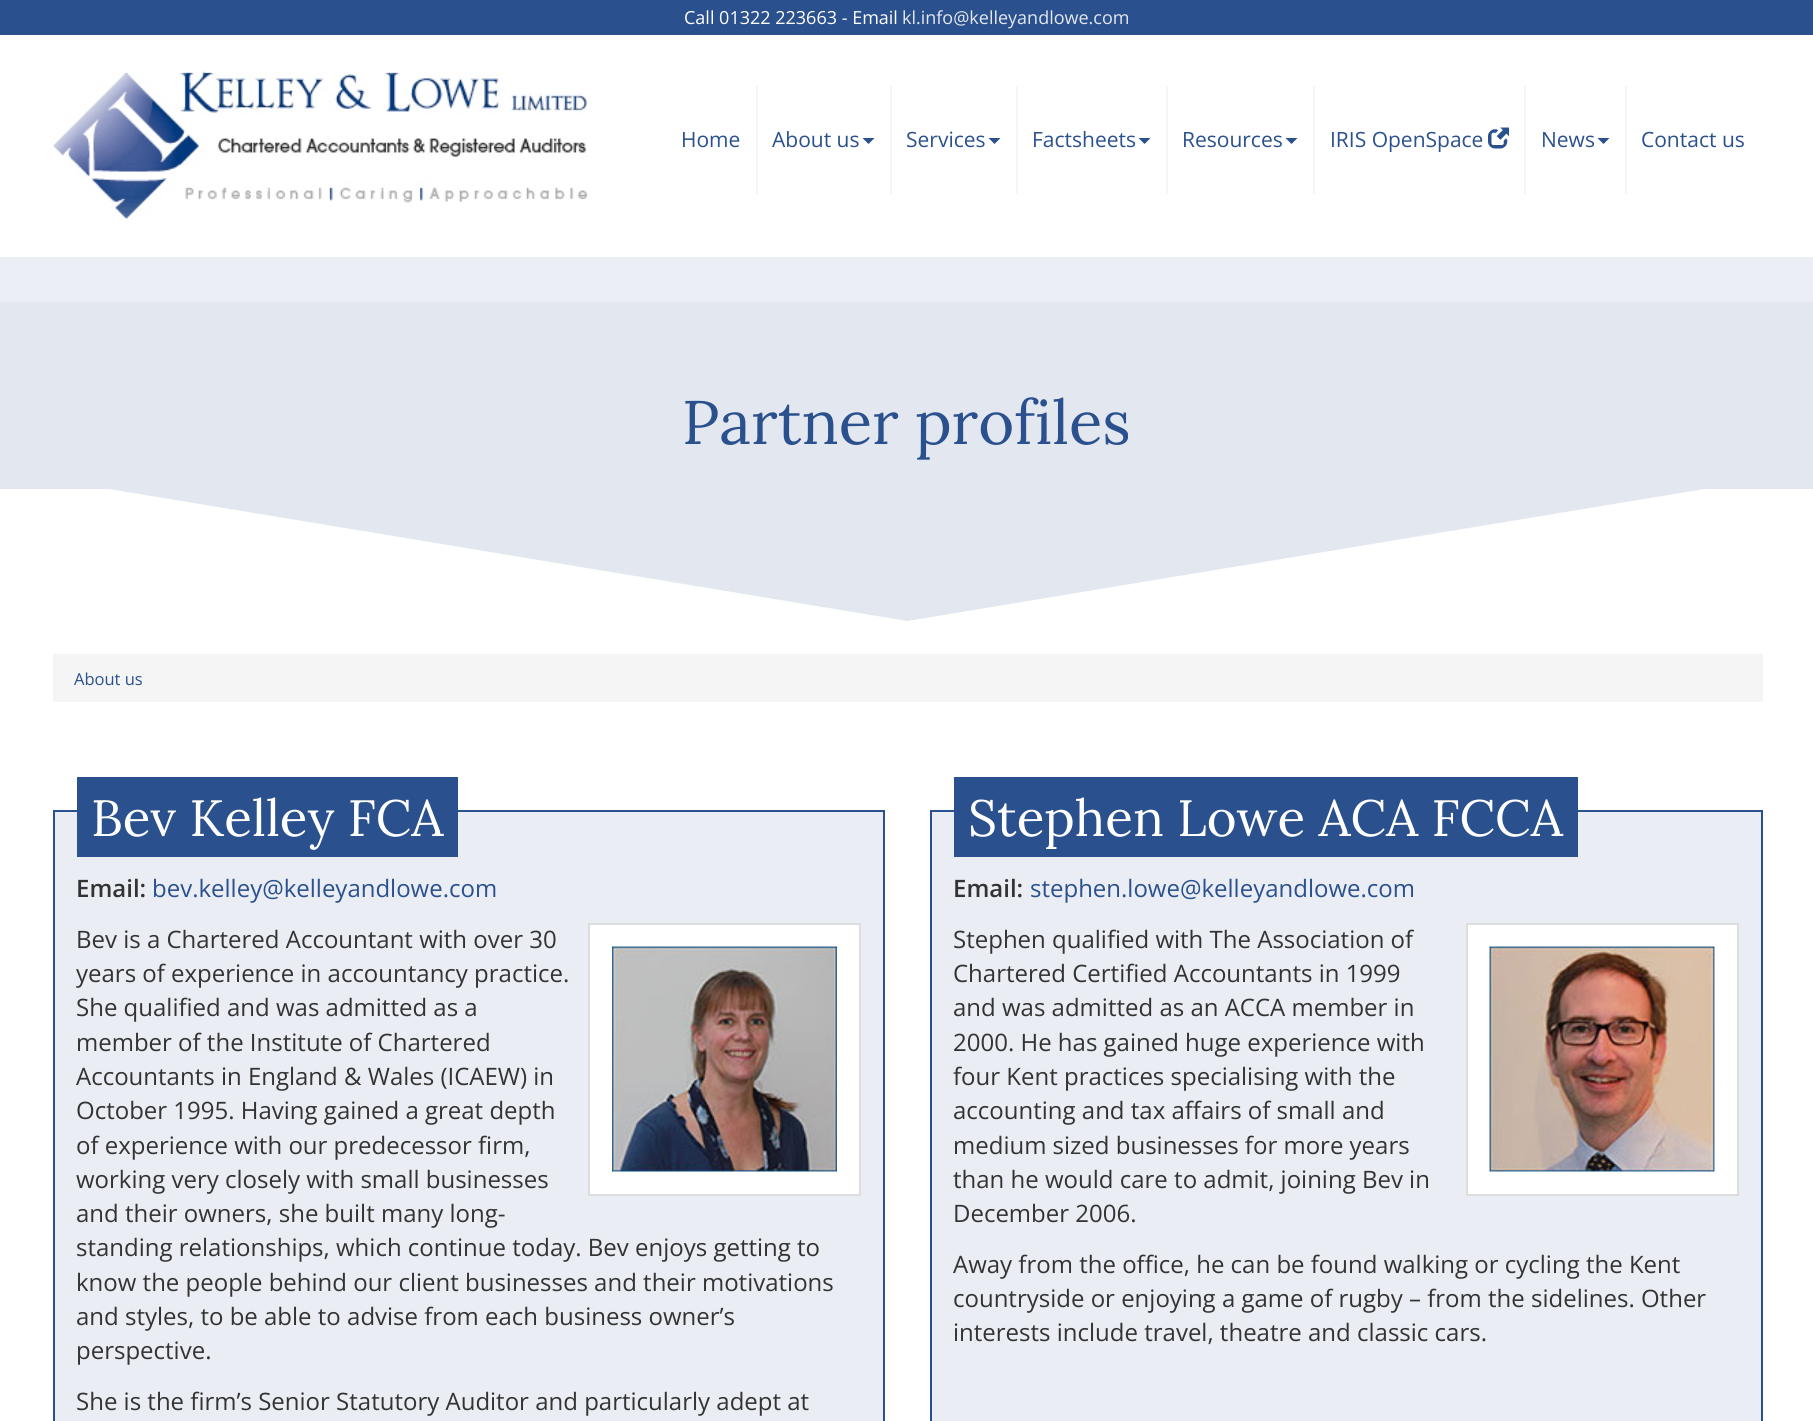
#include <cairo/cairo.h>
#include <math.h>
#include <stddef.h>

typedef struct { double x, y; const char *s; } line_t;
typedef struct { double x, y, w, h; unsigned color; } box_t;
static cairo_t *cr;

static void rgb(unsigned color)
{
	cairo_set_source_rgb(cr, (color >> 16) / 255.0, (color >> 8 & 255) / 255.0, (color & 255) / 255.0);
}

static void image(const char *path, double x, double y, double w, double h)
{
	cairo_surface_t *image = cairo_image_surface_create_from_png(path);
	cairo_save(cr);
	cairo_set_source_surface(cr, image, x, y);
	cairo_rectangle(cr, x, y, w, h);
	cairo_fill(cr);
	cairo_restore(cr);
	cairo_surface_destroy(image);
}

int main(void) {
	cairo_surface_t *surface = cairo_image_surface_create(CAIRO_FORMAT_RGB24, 1813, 1421);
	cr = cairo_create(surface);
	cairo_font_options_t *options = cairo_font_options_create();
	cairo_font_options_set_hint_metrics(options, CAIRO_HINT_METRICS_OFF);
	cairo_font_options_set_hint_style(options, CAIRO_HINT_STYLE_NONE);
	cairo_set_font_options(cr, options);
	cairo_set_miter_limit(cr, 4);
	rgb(0xffffff);
	cairo_paint(cr);
	rgb(0x2a508d);
	cairo_rectangle(cr, 0, 0, 1813, 35);
	cairo_fill(cr);
	image("img/1.png", 53, 71, 535, 149);
	rgb(0xf5f5f5);
	cairo_rectangle(cr, 756, 86, 2, 108);
	cairo_fill(cr);
	rgb(0x2a508d);
	cairo_new_path(cr);
	cairo_move_to(cr, 862.5, 138);
	cairo_line_to(cr, 874.5, 138);
	cairo_line_to(cr, 868.5, 144);
	cairo_close_path(cr);
	cairo_fill(cr);
	rgb(0xf5f5f5);
	cairo_rectangle(cr, 890, 86, 2, 108);
	cairo_fill(cr);
	rgb(0x2a508d);
	cairo_new_path(cr);
	cairo_move_to(cr, 988.5, 138);
	cairo_line_to(cr, 1000.5, 138);
	cairo_line_to(cr, 994.5, 144);
	cairo_close_path(cr);
	cairo_fill(cr);
	rgb(0xf5f5f5);
	cairo_rectangle(cr, 1016, 86, 2, 108);
	cairo_fill(cr);
	rgb(0x2a508d);
	cairo_new_path(cr);
	cairo_move_to(cr, 1138.5, 138);
	cairo_line_to(cr, 1150.5, 138);
	cairo_line_to(cr, 1144.5, 144);
	cairo_close_path(cr);
	cairo_fill(cr);
	rgb(0xf5f5f5);
	cairo_rectangle(cr, 1166, 86, 2, 108);
	cairo_fill(cr);
	rgb(0x2a508d);
	cairo_new_path(cr);
	cairo_move_to(cr, 1285.5, 138);
	cairo_line_to(cr, 1297.5, 138);
	cairo_line_to(cr, 1291.5, 144);
	cairo_close_path(cr);
	cairo_fill(cr);
	rgb(0xf5f5f5);
	cairo_rectangle(cr, 1313, 86, 2, 108);
	cairo_fill(cr);
	image("img/2.png", 1488, 127, 21, 22);
	cairo_rectangle(cr, 1524, 86, 2, 108);
	cairo_fill(cr);
	rgb(0x2a508d);
	cairo_new_path(cr);
	cairo_move_to(cr, 1597.5, 138);
	cairo_line_to(cr, 1609.5, 138);
	cairo_line_to(cr, 1603.5, 144);
	cairo_close_path(cr);
	cairo_fill(cr);
	{
		static const box_t items[] = {
			{1625, 86, 2, 108, 0xf5f5f5},
			{0, 257, 1813, 45, 0xebeff5},
			{0, 302, 1813, 187, 0xe3e8f0},
		};
		for (size_t i = 0; i < sizeof items / sizeof *items; i++) {
			rgb(items[i].color);
			cairo_rectangle(cr, items[i].x, items[i].y, items[i].w, items[i].h);
			cairo_fill(cr);
		}
	}
	cairo_new_path(cr);
	cairo_move_to(cr, 0, 471);
	cairo_line_to(cr, 907, 621);
	cairo_line_to(cr, 1813, 471);
	cairo_close_path(cr);
	cairo_fill(cr);
	rgb(0xf5f5f5);
	cairo_rectangle(cr, 53, 654, 1710, 48);
	cairo_fill(cr);
	rgb(0xeaeef4);
	cairo_rectangle(cr, 54, 811, 830, 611);
	cairo_fill_preserve(cr);
	rgb(0x2a508d);
	cairo_stroke(cr);
	cairo_rectangle(cr, 77, 777, 381, 80);
	cairo_fill(cr);
	rgb(0xffffff);
	cairo_rectangle(cr, 589, 924, 271, 271);
	cairo_fill_preserve(cr);
	rgb(0xdddddd);
	cairo_stroke(cr);
	image("img/3.png", 612, 946, 225, 226);
	rgb(0xeaeef4);
	cairo_rectangle(cr, 931, 811, 831, 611);
	cairo_fill_preserve(cr);
	rgb(0x2a508d);
	cairo_stroke(cr);
	cairo_rectangle(cr, 954, 777, 624, 80);
	cairo_fill(cr);
	rgb(0xffffff);
	cairo_rectangle(cr, 1467, 924, 271, 271);
	cairo_fill_preserve(cr);
	rgb(0xdddddd);
	cairo_stroke(cr);
	image("img/4.png", 1489, 946, 226, 226);
	cairo_select_font_face(cr, "Open Sans", CAIRO_FONT_SLANT_NORMAL, CAIRO_FONT_WEIGHT_NORMAL);
	cairo_set_font_size(cr, 18);
	rgb(0xffffff);
	cairo_move_to(cr, 684, 24);
	cairo_show_text(cr, "Call 01322 223663 - Email");
	rgb(0xe3e8f0);
	cairo_move_to(cr, 902, 24);
	cairo_show_text(cr, "kl.info@kelleyandlowe.com");
	cairo_set_font_size(cr, 21);
	rgb(0x2a508d);
	{
		static const line_t items[] = {
			{681, 147, "Home"},
			{772, 147, "About us"},
			{906, 147, "Services"},
			{1032, 147, "Factsheets"},
			{1182, 147, "Resources"},
			{1330, 147, "IRIS OpenSpace"},
			{1541, 147, "News"},
			{1641, 147, "Contact us"},
		};
		for (size_t i = 0; i < sizeof items / sizeof *items; i++) {
			cairo_move_to(cr, items[i].x, items[i].y);
			cairo_show_text(cr, items[i].s);
		}
	}
	cairo_select_font_face(cr, "Lora", CAIRO_FONT_SLANT_NORMAL, CAIRO_FONT_WEIGHT_NORMAL);
	cairo_set_font_size(cr, 61.5);
	cairo_move_to(cr, 682, 444);
	cairo_show_text(cr, "Partner profiles");
	cairo_select_font_face(cr, "Open Sans", CAIRO_FONT_SLANT_NORMAL, CAIRO_FONT_WEIGHT_NORMAL);
	cairo_set_font_size(cr, 16.5);
	cairo_move_to(cr, 74, 685);
	cairo_show_text(cr, "About us");
	cairo_select_font_face(cr, "Lora", CAIRO_FONT_SLANT_NORMAL, CAIRO_FONT_WEIGHT_NORMAL);
	cairo_set_font_size(cr, 51);
	rgb(0xffffff);
	cairo_move_to(cr, 91, 836);
	cairo_show_text(cr, "Bev Kelley FCA");
	cairo_select_font_face(cr, "Open Sans SemiBold", CAIRO_FONT_SLANT_NORMAL, CAIRO_FONT_WEIGHT_NORMAL);
	cairo_set_font_size(cr, 24);
	rgb(0x333333);
	cairo_move_to(cr, 76, 897);
	cairo_show_text(cr, "Email:");
	cairo_select_font_face(cr, "Open Sans", CAIRO_FONT_SLANT_NORMAL, CAIRO_FONT_WEIGHT_NORMAL);
	rgb(0x2a508d);
	cairo_move_to(cr, 152, 897);
	cairo_show_text(cr, "bev.kelley@kelleyandlowe.com");
	rgb(0x333333);
	{
		static const line_t items[] = {
			{76, 948, "Bev is a Chartered Accountant with over 30"},
			{76, 982, "years of experience in accountancy practice."},
			{76, 1016, "She qualified and was admitted as a"},
			{76, 1051, "member of the Institute of Chartered"},
			{76, 1085, "Accountants in England & Wales (ICAEW) in"},
			{76, 1119, "October 1995. Having gained a great depth"},
			{76, 1154, "of experience with our predecessor firm,"},
			{76, 1188, "working very closely with small businesses"},
			{76, 1222, "and their owners, she built many long-"},
			{76, 1256, "standing relationships, which continue today. Bev enjoys getting to"},
			{76, 1291, "know the people behind our client businesses and their motivations"},
			{76, 1325, "and styles, to be able to advise from each business owner’s"},
			{76, 1359, "perspective."},
			{76, 1410, "She is the firm’s Senior Statutory Auditor and particularly adept at"},
		};
		for (size_t i = 0; i < sizeof items / sizeof *items; i++) {
			cairo_move_to(cr, items[i].x, items[i].y);
			cairo_show_text(cr, items[i].s);
		}
	}
	cairo_select_font_face(cr, "Lora", CAIRO_FONT_SLANT_NORMAL, CAIRO_FONT_WEIGHT_NORMAL);
	cairo_set_font_size(cr, 51);
	rgb(0xffffff);
	cairo_move_to(cr, 968, 836);
	cairo_show_text(cr, "Stephen Lowe ACA FCCA");
	cairo_select_font_face(cr, "Open Sans SemiBold", CAIRO_FONT_SLANT_NORMAL, CAIRO_FONT_WEIGHT_NORMAL);
	cairo_set_font_size(cr, 24);
	rgb(0x333333);
	cairo_move_to(cr, 953, 897);
	cairo_show_text(cr, "Email:");
	cairo_select_font_face(cr, "Open Sans", CAIRO_FONT_SLANT_NORMAL, CAIRO_FONT_WEIGHT_NORMAL);
	rgb(0x2a508d);
	cairo_move_to(cr, 1030, 897);
	cairo_show_text(cr, "stephen.lowe@kelleyandlowe.com");
	rgb(0x333333);
	{
		static const line_t items[] = {
			{953, 948, "Stephen qualified with The Association of"},
			{953, 982, "Chartered Certified Accountants in 1999"},
			{953, 1016, "and was admitted as an ACCA member in"},
			{953, 1051, "2000. He has gained huge experience with"},
			{953, 1085, "four Kent practices specialising with the"},
			{953, 1119, "accounting and tax affairs of small and"},
			{953, 1154, "medium sized businesses for more years"},
			{953, 1188, "than he would care to admit, joining Bev in"},
			{953, 1222, "December 2006."},
			{953, 1273, "Away from the office, he can be found walking or cycling the Kent"},
			{953, 1307, "countryside or enjoying a game of rugby – from the sidelines. Other"},
			{953, 1341, "interests include travel, theatre and classic cars."},
		};
		for (size_t i = 0; i < sizeof items / sizeof *items; i++) {
			cairo_move_to(cr, items[i].x, items[i].y);
			cairo_show_text(cr, items[i].s);
		}
	}
	cairo_surface_write_to_png(surface, "page.png");
	cairo_font_options_destroy(options);
	cairo_destroy(cr);
	cairo_surface_destroy(surface);
	return 0;
}
